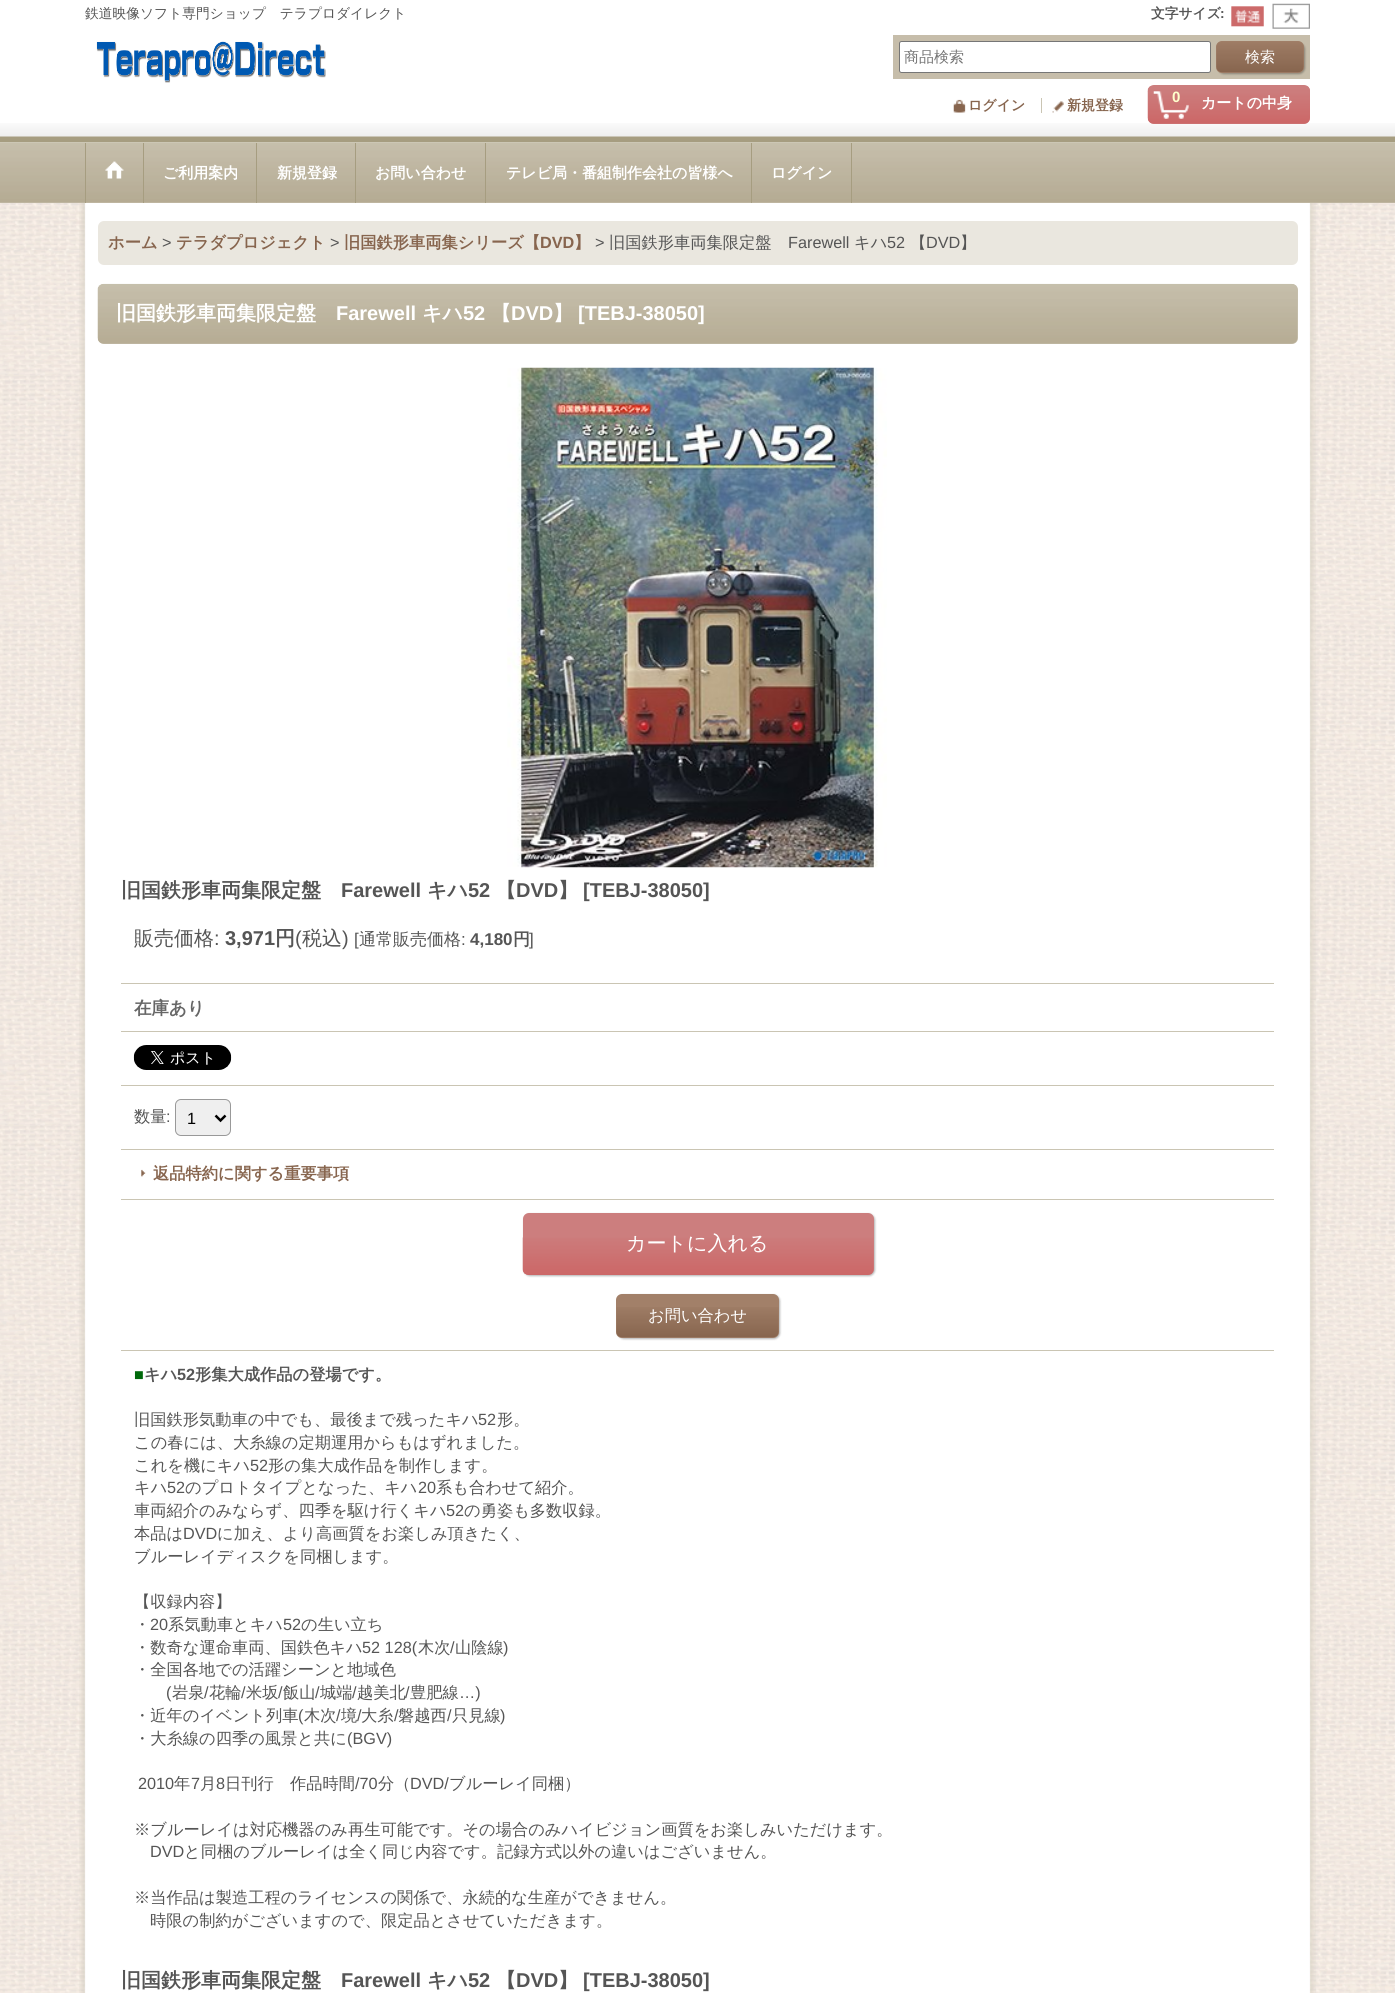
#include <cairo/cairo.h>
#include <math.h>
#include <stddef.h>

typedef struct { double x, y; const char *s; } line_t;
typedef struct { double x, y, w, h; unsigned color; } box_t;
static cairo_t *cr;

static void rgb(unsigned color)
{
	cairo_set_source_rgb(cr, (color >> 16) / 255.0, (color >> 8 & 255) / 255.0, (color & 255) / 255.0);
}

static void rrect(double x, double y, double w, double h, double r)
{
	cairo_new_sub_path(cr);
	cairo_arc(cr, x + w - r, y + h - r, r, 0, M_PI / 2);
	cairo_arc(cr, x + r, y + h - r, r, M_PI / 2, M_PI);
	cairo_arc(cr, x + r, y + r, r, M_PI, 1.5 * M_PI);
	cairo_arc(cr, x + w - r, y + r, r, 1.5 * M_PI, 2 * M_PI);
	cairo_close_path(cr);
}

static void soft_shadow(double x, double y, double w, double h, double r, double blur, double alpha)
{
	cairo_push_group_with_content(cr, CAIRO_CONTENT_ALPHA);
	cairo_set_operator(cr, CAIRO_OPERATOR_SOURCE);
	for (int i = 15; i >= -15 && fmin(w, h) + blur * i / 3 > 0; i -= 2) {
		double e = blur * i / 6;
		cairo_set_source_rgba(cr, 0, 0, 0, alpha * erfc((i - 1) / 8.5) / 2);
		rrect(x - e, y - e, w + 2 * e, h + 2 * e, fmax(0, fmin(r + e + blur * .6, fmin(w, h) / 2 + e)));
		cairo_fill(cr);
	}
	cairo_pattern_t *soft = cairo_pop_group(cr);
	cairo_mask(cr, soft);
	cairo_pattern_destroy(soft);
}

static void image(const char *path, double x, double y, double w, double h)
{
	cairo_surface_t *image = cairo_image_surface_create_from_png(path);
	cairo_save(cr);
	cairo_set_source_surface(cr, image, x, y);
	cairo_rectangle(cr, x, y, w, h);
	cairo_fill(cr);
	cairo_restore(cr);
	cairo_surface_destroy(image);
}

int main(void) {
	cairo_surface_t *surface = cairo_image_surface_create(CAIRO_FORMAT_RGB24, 1395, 1993);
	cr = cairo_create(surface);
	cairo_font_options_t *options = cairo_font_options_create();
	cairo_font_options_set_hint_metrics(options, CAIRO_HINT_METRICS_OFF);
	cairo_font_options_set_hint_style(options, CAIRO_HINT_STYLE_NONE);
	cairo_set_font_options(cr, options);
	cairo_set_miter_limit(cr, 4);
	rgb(0xffffff);
	cairo_paint(cr);
	image("img/1.png", 0, 203, 1395, 1790);
	image("img/2.png", 79, 203, 1237, 1790);
	image("img/3.png", 0, 123, 1395, 20);
	image("img/4.png", 1231, 6, 33, 21);
	image("img/5.png", 1272, 3, 38, 26);
	image("img/6.png", 96, 41, 230, 42);
	rgb(0xc6bdaa);
	cairo_rectangle(cr, 893, 35, 417, 44);
	cairo_fill(cr);
	rgb(0xffffff);
	rrect(899.5, 41.5, 311, 31, 2);
	cairo_fill_preserve(cr);
	rgb(0x767676);
	cairo_set_line_width(cr, 1);
	cairo_stroke(cr);
	rgb(0x000000);
	soft_shadow(1218, 43, 87, 31, 6, 1, 0.3);
	rgb(0xa28069);
	rrect(1216, 41, 88, 32, 6);
	cairo_fill(cr);
	image("img/7.png", 1216, 41, 88, 32);
	image("img/8.png", 953, 99, 13, 14);
	rgb(0xcac5b3);
	cairo_rectangle(cr, 1041, 98, 1, 15);
	cairo_fill(cr);
	image("img/9.png", 1052, 101, 12, 12);
	rgb(0xcc7e7e);
	rrect(1148, 85, 162, 39, 6);
	cairo_fill(cr);
	image("img/10.png", 1147, 86, 163, 38);
	image("img/11.png", 1153, 91, 36, 28);
	rgb(0xc6bfac);
	cairo_rectangle(cr, 0, 202, 1395, 1);
	cairo_fill(cr);
	image("img/12.png", 0, 142, 1395, 61);
	rgb(0xa69d80);
	cairo_rectangle(cr, 143, 143, 1, 60);
	cairo_fill(cr);
	cairo_rectangle(cr, 85, 143, 1, 60);
	cairo_fill(cr);
	image("img/13.png", 105, 161, 19, 18);
	{
		static const box_t items[] = {
			{256, 143, 1, 60, 0xa69d80},
			{355, 143, 1, 60, 0xa69d80},
			{485, 143, 1, 60, 0xa69d80},
			{751, 143, 1, 60, 0xa69d80},
			{851, 143, 1, 60, 0xa69d80},
		};
		for (size_t i = 0; i < sizeof items / sizeof *items; i++) {
			rgb(items[i].color);
			cairo_rectangle(cr, items[i].x, items[i].y, items[i].w, items[i].h);
			cairo_fill(cr);
		}
	}
	rgb(0xeae7df);
	rrect(98, 221, 1200, 44, 6);
	cairo_fill(cr);
	rgb(0xc6bfac);
	rrect(98, 284, 1200, 60, 6);
	cairo_fill(cr);
	image("img/14.png", 97, 283, 1201, 61);
	image("img/15.png", 507, 367, 380, 501);
	{
		static const box_t items[] = {
			{121, 983, 1153, 1, 0xcac5b3},
			{121, 1031, 1153, 1, 0xcac5b3},
			{121, 1085, 1153, 1, 0xcac5b3},
		};
		for (size_t i = 0; i < sizeof items / sizeof *items; i++) {
			rgb(items[i].color);
			cairo_rectangle(cr, items[i].x, items[i].y, items[i].w, items[i].h);
			cairo_fill(cr);
		}
	}
	image("img/16.png", 133, 1045, 99, 25);
	cairo_rectangle(cr, 121, 1149, 1153, 1);
	cairo_fill(cr);
	rgb(0xefefef);
	rrect(175.5, 1099.5, 55, 36, 5.5);
	cairo_fill_preserve(cr);
	rgb(0x999999);
	cairo_stroke(cr);
	cairo_new_path(cr);
	cairo_move_to(cr, 215.5, 1115.5);
	cairo_line_to(cr, 220.5, 1120.5);
	cairo_line_to(cr, 225.5, 1115.5);
	rgb(0x000000);
	cairo_set_line_width(cr, 2.5);
	cairo_stroke(cr);
	rgb(0xcac5b3);
	cairo_rectangle(cr, 121, 1199, 1153, 1);
	cairo_fill(cr);
	image("img/17.png", 141, 1169, 5, 8);
	cairo_rectangle(cr, 121, 1350, 1153, 1);
	cairo_fill(cr);
	rgb(0x000000);
	soft_shadow(524, 1214, 351, 62, 6, 1, 0.3);
	rgb(0xcc7e7e);
	rrect(523, 1213, 351, 62, 6);
	cairo_fill(cr);
	image("img/18.png", 522, 1237, 352, 38);
	rgb(0x000000);
	soft_shadow(618, 1295, 162, 44, 6, 1, 0.3);
	rgb(0xa28069);
	rrect(616, 1294, 163, 44, 6);
	cairo_fill(cr);
	image("img/19.png", 616, 1307, 163, 31);
	cairo_select_font_face(cr, "WenQuanYi Zen Hei Medium", CAIRO_FONT_SLANT_NORMAL, CAIRO_FONT_WEIGHT_NORMAL);
	cairo_set_font_size(cr, 13.75);
	rgb(0x555555);
	cairo_move_to(cr, 85, 18);
	cairo_show_text(cr, "鉄道映像ソフト専門ショップ　テラプロダイレクト");
	cairo_select_font_face(cr, "WenQuanYi Zen Hei", CAIRO_FONT_SLANT_NORMAL, CAIRO_FONT_WEIGHT_BOLD);
	cairo_move_to(cr, 1151, 18);
	cairo_show_text(cr, "文字サイズ");
	cairo_select_font_face(cr, "Liberation Sans", CAIRO_FONT_SLANT_NORMAL, CAIRO_FONT_WEIGHT_BOLD);
	cairo_move_to(cr, 1220, 18);
	cairo_show_text(cr, ":");
	cairo_select_font_face(cr, "WenQuanYi Zen Hei Medium", CAIRO_FONT_SLANT_NORMAL, CAIRO_FONT_WEIGHT_NORMAL);
	cairo_set_font_size(cr, 15);
	rgb(0x757575);
	cairo_move_to(cr, 904, 62);
	cairo_show_text(cr, "商品検索");
	rgb(0xffffff);
	cairo_move_to(cr, 1245, 62);
	cairo_show_text(cr, "検索");
	cairo_select_font_face(cr, "WenQuanYi Zen Hei", CAIRO_FONT_SLANT_NORMAL, CAIRO_FONT_WEIGHT_BOLD);
	cairo_set_font_size(cr, 14);
	rgb(0x87654e);
	cairo_move_to(cr, 968, 110);
	cairo_show_text(cr, "ログイン");
	cairo_move_to(cr, 1067, 110);
	cairo_show_text(cr, "新規登録");
	cairo_select_font_face(cr, "Liberation Sans", CAIRO_FONT_SLANT_NORMAL, CAIRO_FONT_WEIGHT_BOLD);
	cairo_set_font_size(cr, 15);
	rgb(0xffffcc);
	cairo_move_to(cr, 1172, 102);
	cairo_show_text(cr, "0");
	cairo_select_font_face(cr, "WenQuanYi Zen Hei", CAIRO_FONT_SLANT_NORMAL, CAIRO_FONT_WEIGHT_BOLD);
	rgb(0xffffff);
	{
		static const line_t items[] = {
			{1201, 108, "カートの中身"},
			{163, 178, "ご利用案内"},
			{277, 178, "新規登録"},
			{375, 178, "お問い合わせ"},
			{506, 178, "テレビ局・番組制作会社の皆様へ"},
			{771, 178, "ログイン"},
		};
		for (size_t i = 0; i < sizeof items / sizeof *items; i++) {
			cairo_move_to(cr, items[i].x, items[i].y);
			cairo_show_text(cr, items[i].s);
		}
	}
	cairo_set_font_size(cr, 16.25);
	rgb(0x87654e);
	cairo_move_to(cr, 108, 248);
	cairo_show_text(cr, "ホーム");
	cairo_select_font_face(cr, "Liberation Sans", CAIRO_FONT_SLANT_NORMAL, CAIRO_FONT_WEIGHT_NORMAL);
	rgb(0x555555);
	cairo_move_to(cr, 162, 248);
	cairo_show_text(cr, ">");
	cairo_select_font_face(cr, "WenQuanYi Zen Hei", CAIRO_FONT_SLANT_NORMAL, CAIRO_FONT_WEIGHT_BOLD);
	rgb(0x87654e);
	cairo_move_to(cr, 176, 248);
	cairo_show_text(cr, "テラダプロジェクト");
	cairo_select_font_face(cr, "Liberation Sans", CAIRO_FONT_SLANT_NORMAL, CAIRO_FONT_WEIGHT_NORMAL);
	rgb(0x555555);
	cairo_move_to(cr, 330, 248);
	cairo_show_text(cr, ">");
	cairo_select_font_face(cr, "WenQuanYi Zen Hei", CAIRO_FONT_SLANT_NORMAL, CAIRO_FONT_WEIGHT_BOLD);
	rgb(0x87654e);
	cairo_move_to(cr, 344, 248);
	cairo_show_text(cr, "旧国鉄形車両集シリーズ【");
	cairo_select_font_face(cr, "Liberation Sans", CAIRO_FONT_SLANT_NORMAL, CAIRO_FONT_WEIGHT_BOLD);
	cairo_move_to(cr, 540, 248);
	cairo_show_text(cr, "DVD");
	cairo_select_font_face(cr, "WenQuanYi Zen Hei", CAIRO_FONT_SLANT_NORMAL, CAIRO_FONT_WEIGHT_BOLD);
	cairo_move_to(cr, 574, 248);
	cairo_show_text(cr, "】");
	cairo_select_font_face(cr, "Liberation Sans", CAIRO_FONT_SLANT_NORMAL, CAIRO_FONT_WEIGHT_NORMAL);
	rgb(0x555555);
	cairo_move_to(cr, 595, 248);
	cairo_show_text(cr, ">");
	cairo_select_font_face(cr, "WenQuanYi Zen Hei Medium", CAIRO_FONT_SLANT_NORMAL, CAIRO_FONT_WEIGHT_NORMAL);
	cairo_move_to(cr, 609, 248);
	cairo_show_text(cr, "旧国鉄形車両集限定盤");
	cairo_select_font_face(cr, "Liberation Sans", CAIRO_FONT_SLANT_NORMAL, CAIRO_FONT_WEIGHT_NORMAL);
	cairo_move_to(cr, 788, 248);
	cairo_show_text(cr, "Farewell");
	cairo_select_font_face(cr, "WenQuanYi Zen Hei Medium", CAIRO_FONT_SLANT_NORMAL, CAIRO_FONT_WEIGHT_NORMAL);
	cairo_move_to(cr, 854, 248);
	cairo_show_text(cr, "キハ");
	cairo_select_font_face(cr, "Liberation Sans", CAIRO_FONT_SLANT_NORMAL, CAIRO_FONT_WEIGHT_NORMAL);
	cairo_move_to(cr, 887, 248);
	cairo_show_text(cr, "52");
	cairo_select_font_face(cr, "WenQuanYi Zen Hei Medium", CAIRO_FONT_SLANT_NORMAL, CAIRO_FONT_WEIGHT_NORMAL);
	cairo_move_to(cr, 910, 248);
	cairo_show_text(cr, "【");
	cairo_select_font_face(cr, "Liberation Sans", CAIRO_FONT_SLANT_NORMAL, CAIRO_FONT_WEIGHT_NORMAL);
	cairo_move_to(cr, 926, 248);
	cairo_show_text(cr, "DVD");
	cairo_select_font_face(cr, "WenQuanYi Zen Hei Medium", CAIRO_FONT_SLANT_NORMAL, CAIRO_FONT_WEIGHT_NORMAL);
	cairo_move_to(cr, 960, 248);
	cairo_show_text(cr, "】");
	cairo_select_font_face(cr, "WenQuanYi Zen Hei", CAIRO_FONT_SLANT_NORMAL, CAIRO_FONT_WEIGHT_BOLD);
	cairo_set_font_size(cr, 20);
	rgb(0xffffff);
	cairo_move_to(cr, 116, 320);
	cairo_show_text(cr, "旧国鉄形車両集限定盤");
	cairo_select_font_face(cr, "Liberation Sans", CAIRO_FONT_SLANT_NORMAL, CAIRO_FONT_WEIGHT_BOLD);
	cairo_move_to(cr, 336, 320);
	cairo_show_text(cr, "Farewell");
	cairo_select_font_face(cr, "WenQuanYi Zen Hei", CAIRO_FONT_SLANT_NORMAL, CAIRO_FONT_WEIGHT_BOLD);
	cairo_move_to(cr, 422, 320);
	cairo_show_text(cr, "キハ");
	cairo_select_font_face(cr, "Liberation Sans", CAIRO_FONT_SLANT_NORMAL, CAIRO_FONT_WEIGHT_BOLD);
	cairo_move_to(cr, 463, 320);
	cairo_show_text(cr, "52");
	cairo_select_font_face(cr, "WenQuanYi Zen Hei", CAIRO_FONT_SLANT_NORMAL, CAIRO_FONT_WEIGHT_BOLD);
	cairo_move_to(cr, 491, 320);
	cairo_show_text(cr, "【");
	cairo_select_font_face(cr, "Liberation Sans", CAIRO_FONT_SLANT_NORMAL, CAIRO_FONT_WEIGHT_BOLD);
	cairo_move_to(cr, 511, 320);
	cairo_show_text(cr, "DVD");
	cairo_select_font_face(cr, "WenQuanYi Zen Hei", CAIRO_FONT_SLANT_NORMAL, CAIRO_FONT_WEIGHT_BOLD);
	cairo_move_to(cr, 553, 320);
	cairo_show_text(cr, "】");
	cairo_select_font_face(cr, "Liberation Sans", CAIRO_FONT_SLANT_NORMAL, CAIRO_FONT_WEIGHT_BOLD);
	cairo_move_to(cr, 578, 320);
	cairo_show_text(cr, "[TEBJ-38050]");
	cairo_select_font_face(cr, "WenQuanYi Zen Hei", CAIRO_FONT_SLANT_NORMAL, CAIRO_FONT_WEIGHT_BOLD);
	rgb(0x555555);
	cairo_move_to(cr, 121, 897);
	cairo_show_text(cr, "旧国鉄形車両集限定盤");
	cairo_select_font_face(cr, "Liberation Sans", CAIRO_FONT_SLANT_NORMAL, CAIRO_FONT_WEIGHT_BOLD);
	cairo_move_to(cr, 341, 897);
	cairo_show_text(cr, "Farewell");
	cairo_select_font_face(cr, "WenQuanYi Zen Hei", CAIRO_FONT_SLANT_NORMAL, CAIRO_FONT_WEIGHT_BOLD);
	cairo_move_to(cr, 427, 897);
	cairo_show_text(cr, "キハ");
	cairo_select_font_face(cr, "Liberation Sans", CAIRO_FONT_SLANT_NORMAL, CAIRO_FONT_WEIGHT_BOLD);
	cairo_move_to(cr, 468, 897);
	cairo_show_text(cr, "52");
	cairo_select_font_face(cr, "WenQuanYi Zen Hei", CAIRO_FONT_SLANT_NORMAL, CAIRO_FONT_WEIGHT_BOLD);
	cairo_move_to(cr, 496, 897);
	cairo_show_text(cr, "【");
	cairo_select_font_face(cr, "Liberation Sans", CAIRO_FONT_SLANT_NORMAL, CAIRO_FONT_WEIGHT_BOLD);
	cairo_move_to(cr, 516, 897);
	cairo_show_text(cr, "DVD");
	cairo_select_font_face(cr, "WenQuanYi Zen Hei", CAIRO_FONT_SLANT_NORMAL, CAIRO_FONT_WEIGHT_BOLD);
	cairo_move_to(cr, 558, 897);
	cairo_show_text(cr, "】");
	cairo_select_font_face(cr, "Liberation Sans", CAIRO_FONT_SLANT_NORMAL, CAIRO_FONT_WEIGHT_BOLD);
	cairo_move_to(cr, 583, 897);
	cairo_show_text(cr, "[TEBJ-38050]");
	cairo_select_font_face(cr, "WenQuanYi Zen Hei Medium", CAIRO_FONT_SLANT_NORMAL, CAIRO_FONT_WEIGHT_NORMAL);
	cairo_move_to(cr, 134, 945);
	cairo_show_text(cr, "販売価格");
	cairo_select_font_face(cr, "Liberation Sans", CAIRO_FONT_SLANT_NORMAL, CAIRO_FONT_WEIGHT_NORMAL);
	cairo_move_to(cr, 214, 945);
	cairo_show_text(cr, ":");
	cairo_select_font_face(cr, "Liberation Sans", CAIRO_FONT_SLANT_NORMAL, CAIRO_FONT_WEIGHT_BOLD);
	cairo_move_to(cr, 225, 945);
	cairo_show_text(cr, "3,971");
	cairo_select_font_face(cr, "WenQuanYi Zen Hei", CAIRO_FONT_SLANT_NORMAL, CAIRO_FONT_WEIGHT_BOLD);
	cairo_move_to(cr, 275, 945);
	cairo_show_text(cr, "円");
	cairo_select_font_face(cr, "Liberation Sans", CAIRO_FONT_SLANT_NORMAL, CAIRO_FONT_WEIGHT_NORMAL);
	cairo_move_to(cr, 295, 945);
	cairo_show_text(cr, "(");
	cairo_select_font_face(cr, "WenQuanYi Zen Hei Medium", CAIRO_FONT_SLANT_NORMAL, CAIRO_FONT_WEIGHT_NORMAL);
	cairo_move_to(cr, 302, 945);
	cairo_show_text(cr, "税込");
	cairo_select_font_face(cr, "Liberation Sans", CAIRO_FONT_SLANT_NORMAL, CAIRO_FONT_WEIGHT_NORMAL);
	cairo_move_to(cr, 342, 945);
	cairo_show_text(cr, ")");
	cairo_set_font_size(cr, 17);
	cairo_move_to(cr, 354, 945);
	cairo_show_text(cr, "[");
	cairo_select_font_face(cr, "WenQuanYi Zen Hei Medium", CAIRO_FONT_SLANT_NORMAL, CAIRO_FONT_WEIGHT_NORMAL);
	cairo_move_to(cr, 359, 945);
	cairo_show_text(cr, "通常販売価格");
	cairo_select_font_face(cr, "Liberation Sans", CAIRO_FONT_SLANT_NORMAL, CAIRO_FONT_WEIGHT_NORMAL);
	cairo_move_to(cr, 461, 945);
	cairo_show_text(cr, ":");
	cairo_select_font_face(cr, "Liberation Sans", CAIRO_FONT_SLANT_NORMAL, CAIRO_FONT_WEIGHT_BOLD);
	cairo_move_to(cr, 470, 945);
	cairo_show_text(cr, "4,180");
	cairo_select_font_face(cr, "WenQuanYi Zen Hei", CAIRO_FONT_SLANT_NORMAL, CAIRO_FONT_WEIGHT_BOLD);
	cairo_move_to(cr, 513, 945);
	cairo_show_text(cr, "円");
	cairo_select_font_face(cr, "Liberation Sans", CAIRO_FONT_SLANT_NORMAL, CAIRO_FONT_WEIGHT_NORMAL);
	cairo_move_to(cr, 529, 945);
	cairo_show_text(cr, "]");
	cairo_select_font_face(cr, "WenQuanYi Zen Hei", CAIRO_FONT_SLANT_NORMAL, CAIRO_FONT_WEIGHT_BOLD);
	cairo_set_font_size(cr, 17.5);
	rgb(0x666666);
	cairo_move_to(cr, 134, 1014);
	cairo_show_text(cr, "在庫あり");
	cairo_select_font_face(cr, "WenQuanYi Zen Hei Medium", CAIRO_FONT_SLANT_NORMAL, CAIRO_FONT_WEIGHT_NORMAL);
	cairo_set_font_size(cr, 16.25);
	rgb(0x555555);
	cairo_move_to(cr, 134, 1122);
	cairo_show_text(cr, "数量");
	cairo_select_font_face(cr, "Liberation Sans", CAIRO_FONT_SLANT_NORMAL, CAIRO_FONT_WEIGHT_NORMAL);
	cairo_move_to(cr, 166, 1122);
	cairo_show_text(cr, ":");
	rgb(0x000000);
	cairo_move_to(cr, 187, 1124);
	cairo_show_text(cr, "1");
	cairo_select_font_face(cr, "WenQuanYi Zen Hei", CAIRO_FONT_SLANT_NORMAL, CAIRO_FONT_WEIGHT_BOLD);
	rgb(0x87654e);
	cairo_move_to(cr, 153, 1179);
	cairo_show_text(cr, "返品特約に関する重要事項");
	cairo_select_font_face(cr, "WenQuanYi Zen Hei Medium", CAIRO_FONT_SLANT_NORMAL, CAIRO_FONT_WEIGHT_NORMAL);
	cairo_set_font_size(cr, 20);
	rgb(0xffffff);
	cairo_move_to(cr, 626, 1250);
	cairo_show_text(cr, "カートに入れる");
	cairo_set_font_size(cr, 16.25);
	cairo_move_to(cr, 648, 1321);
	cairo_show_text(cr, "お問い合わせ");
	cairo_select_font_face(cr, "Liberation Sans", CAIRO_FONT_SLANT_NORMAL, CAIRO_FONT_WEIGHT_BOLD);
	rgb(0x00690b);
	cairo_move_to(cr, 134, 1380);
	cairo_show_text(cr, "■");
	cairo_select_font_face(cr, "WenQuanYi Zen Hei", CAIRO_FONT_SLANT_NORMAL, CAIRO_FONT_WEIGHT_BOLD);
	rgb(0x555555);
	cairo_move_to(cr, 144, 1380);
	cairo_show_text(cr, "キハ");
	cairo_select_font_face(cr, "Liberation Sans", CAIRO_FONT_SLANT_NORMAL, CAIRO_FONT_WEIGHT_BOLD);
	cairo_move_to(cr, 177, 1380);
	cairo_show_text(cr, "52");
	cairo_select_font_face(cr, "WenQuanYi Zen Hei", CAIRO_FONT_SLANT_NORMAL, CAIRO_FONT_WEIGHT_BOLD);
	cairo_move_to(cr, 195, 1380);
	cairo_show_text(cr, "形集大成作品の登場です。");
	cairo_select_font_face(cr, "WenQuanYi Zen Hei Medium", CAIRO_FONT_SLANT_NORMAL, CAIRO_FONT_WEIGHT_NORMAL);
	cairo_move_to(cr, 134, 1425);
	cairo_show_text(cr, "旧国鉄形気動車の中でも、最後まで残ったキハ");
	cairo_select_font_face(cr, "Liberation Sans", CAIRO_FONT_SLANT_NORMAL, CAIRO_FONT_WEIGHT_NORMAL);
	cairo_move_to(cr, 478, 1425);
	cairo_show_text(cr, "52");
	cairo_select_font_face(cr, "WenQuanYi Zen Hei Medium", CAIRO_FONT_SLANT_NORMAL, CAIRO_FONT_WEIGHT_NORMAL);
	{
		static const line_t items[] = {
			{497, 1425, "形。"},
			{134, 1448, "この春には、大糸線の定期運用からもはずれました。"},
			{134, 1471, "これを機にキハ"},
		};
		for (size_t i = 0; i < sizeof items / sizeof *items; i++) {
			cairo_move_to(cr, items[i].x, items[i].y);
			cairo_show_text(cr, items[i].s);
		}
	}
	cairo_select_font_face(cr, "Liberation Sans", CAIRO_FONT_SLANT_NORMAL, CAIRO_FONT_WEIGHT_NORMAL);
	cairo_move_to(cr, 250, 1471);
	cairo_show_text(cr, "52");
	cairo_select_font_face(cr, "WenQuanYi Zen Hei Medium", CAIRO_FONT_SLANT_NORMAL, CAIRO_FONT_WEIGHT_NORMAL);
	cairo_move_to(cr, 268, 1471);
	cairo_show_text(cr, "形の集大成作品を制作します。");
	cairo_move_to(cr, 134, 1493);
	cairo_show_text(cr, "キハ");
	cairo_select_font_face(cr, "Liberation Sans", CAIRO_FONT_SLANT_NORMAL, CAIRO_FONT_WEIGHT_NORMAL);
	cairo_move_to(cr, 167, 1493);
	cairo_show_text(cr, "52");
	cairo_select_font_face(cr, "WenQuanYi Zen Hei Medium", CAIRO_FONT_SLANT_NORMAL, CAIRO_FONT_WEIGHT_NORMAL);
	cairo_move_to(cr, 185, 1493);
	cairo_show_text(cr, "のプロトタイプとなった、キハ");
	cairo_select_font_face(cr, "Liberation Sans", CAIRO_FONT_SLANT_NORMAL, CAIRO_FONT_WEIGHT_NORMAL);
	cairo_move_to(cr, 418, 1493);
	cairo_show_text(cr, "20");
	cairo_select_font_face(cr, "WenQuanYi Zen Hei Medium", CAIRO_FONT_SLANT_NORMAL, CAIRO_FONT_WEIGHT_NORMAL);
	cairo_move_to(cr, 436, 1493);
	cairo_show_text(cr, "系も合わせて紹介。");
	cairo_move_to(cr, 134, 1516);
	cairo_show_text(cr, "車両紹介のみならず、四季を駆け行くキハ");
	cairo_select_font_face(cr, "Liberation Sans", CAIRO_FONT_SLANT_NORMAL, CAIRO_FONT_WEIGHT_NORMAL);
	cairo_move_to(cr, 446, 1516);
	cairo_show_text(cr, "52");
	cairo_select_font_face(cr, "WenQuanYi Zen Hei Medium", CAIRO_FONT_SLANT_NORMAL, CAIRO_FONT_WEIGHT_NORMAL);
	cairo_move_to(cr, 464, 1516);
	cairo_show_text(cr, "の勇姿も多数収録。");
	cairo_move_to(cr, 134, 1539);
	cairo_show_text(cr, "本品は");
	cairo_select_font_face(cr, "Liberation Sans", CAIRO_FONT_SLANT_NORMAL, CAIRO_FONT_WEIGHT_NORMAL);
	cairo_move_to(cr, 183, 1539);
	cairo_show_text(cr, "DVD");
	cairo_select_font_face(cr, "WenQuanYi Zen Hei Medium", CAIRO_FONT_SLANT_NORMAL, CAIRO_FONT_WEIGHT_NORMAL);
	{
		static const line_t items[] = {
			{217, 1539, "に加え、より高画質をお楽しみ頂きたく、"},
			{134, 1562, "ブルーレイディスクを同梱します。"},
			{134, 1607, "【収録内容】"},
			{134, 1630, "・"},
		};
		for (size_t i = 0; i < sizeof items / sizeof *items; i++) {
			cairo_move_to(cr, items[i].x, items[i].y);
			cairo_show_text(cr, items[i].s);
		}
	}
	cairo_select_font_face(cr, "Liberation Sans", CAIRO_FONT_SLANT_NORMAL, CAIRO_FONT_WEIGHT_NORMAL);
	cairo_move_to(cr, 150, 1630);
	cairo_show_text(cr, "20");
	cairo_select_font_face(cr, "WenQuanYi Zen Hei Medium", CAIRO_FONT_SLANT_NORMAL, CAIRO_FONT_WEIGHT_NORMAL);
	cairo_move_to(cr, 168, 1630);
	cairo_show_text(cr, "系気動車とキハ");
	cairo_select_font_face(cr, "Liberation Sans", CAIRO_FONT_SLANT_NORMAL, CAIRO_FONT_WEIGHT_NORMAL);
	cairo_move_to(cr, 283, 1630);
	cairo_show_text(cr, "52");
	cairo_select_font_face(cr, "WenQuanYi Zen Hei Medium", CAIRO_FONT_SLANT_NORMAL, CAIRO_FONT_WEIGHT_NORMAL);
	cairo_move_to(cr, 301, 1630);
	cairo_show_text(cr, "の生い立ち");
	cairo_move_to(cr, 134, 1653);
	cairo_show_text(cr, "・数奇な運命車両、国鉄色キハ");
	cairo_select_font_face(cr, "Liberation Sans", CAIRO_FONT_SLANT_NORMAL, CAIRO_FONT_WEIGHT_NORMAL);
	cairo_move_to(cr, 362, 1653);
	cairo_show_text(cr, "52 128(");
	cairo_select_font_face(cr, "WenQuanYi Zen Hei Medium", CAIRO_FONT_SLANT_NORMAL, CAIRO_FONT_WEIGHT_NORMAL);
	cairo_move_to(cr, 418, 1653);
	cairo_show_text(cr, "木次");
	cairo_select_font_face(cr, "Liberation Sans", CAIRO_FONT_SLANT_NORMAL, CAIRO_FONT_WEIGHT_NORMAL);
	cairo_move_to(cr, 450, 1653);
	cairo_show_text(cr, "/");
	cairo_select_font_face(cr, "WenQuanYi Zen Hei Medium", CAIRO_FONT_SLANT_NORMAL, CAIRO_FONT_WEIGHT_NORMAL);
	cairo_move_to(cr, 455, 1653);
	cairo_show_text(cr, "山陰線");
	cairo_select_font_face(cr, "Liberation Sans", CAIRO_FONT_SLANT_NORMAL, CAIRO_FONT_WEIGHT_NORMAL);
	cairo_move_to(cr, 503, 1653);
	cairo_show_text(cr, ")");
	cairo_select_font_face(cr, "WenQuanYi Zen Hei Medium", CAIRO_FONT_SLANT_NORMAL, CAIRO_FONT_WEIGHT_NORMAL);
	cairo_move_to(cr, 134, 1675);
	cairo_show_text(cr, "・全国各地での活躍シーンと地域色");
	cairo_select_font_face(cr, "Liberation Sans", CAIRO_FONT_SLANT_NORMAL, CAIRO_FONT_WEIGHT_NORMAL);
	cairo_move_to(cr, 166, 1698);
	cairo_show_text(cr, "(");
	cairo_select_font_face(cr, "WenQuanYi Zen Hei Medium", CAIRO_FONT_SLANT_NORMAL, CAIRO_FONT_WEIGHT_NORMAL);
	cairo_move_to(cr, 172, 1698);
	cairo_show_text(cr, "岩泉");
	cairo_select_font_face(cr, "Liberation Sans", CAIRO_FONT_SLANT_NORMAL, CAIRO_FONT_WEIGHT_NORMAL);
	cairo_move_to(cr, 204, 1698);
	cairo_show_text(cr, "/");
	cairo_select_font_face(cr, "WenQuanYi Zen Hei Medium", CAIRO_FONT_SLANT_NORMAL, CAIRO_FONT_WEIGHT_NORMAL);
	cairo_move_to(cr, 209, 1698);
	cairo_show_text(cr, "花輪");
	cairo_select_font_face(cr, "Liberation Sans", CAIRO_FONT_SLANT_NORMAL, CAIRO_FONT_WEIGHT_NORMAL);
	cairo_move_to(cr, 241, 1698);
	cairo_show_text(cr, "/");
	cairo_select_font_face(cr, "WenQuanYi Zen Hei Medium", CAIRO_FONT_SLANT_NORMAL, CAIRO_FONT_WEIGHT_NORMAL);
	cairo_move_to(cr, 246, 1698);
	cairo_show_text(cr, "米坂");
	cairo_select_font_face(cr, "Liberation Sans", CAIRO_FONT_SLANT_NORMAL, CAIRO_FONT_WEIGHT_NORMAL);
	cairo_move_to(cr, 278, 1698);
	cairo_show_text(cr, "/");
	cairo_select_font_face(cr, "WenQuanYi Zen Hei Medium", CAIRO_FONT_SLANT_NORMAL, CAIRO_FONT_WEIGHT_NORMAL);
	cairo_move_to(cr, 283, 1698);
	cairo_show_text(cr, "飯山");
	cairo_select_font_face(cr, "Liberation Sans", CAIRO_FONT_SLANT_NORMAL, CAIRO_FONT_WEIGHT_NORMAL);
	cairo_move_to(cr, 315, 1698);
	cairo_show_text(cr, "/");
	cairo_select_font_face(cr, "WenQuanYi Zen Hei Medium", CAIRO_FONT_SLANT_NORMAL, CAIRO_FONT_WEIGHT_NORMAL);
	cairo_move_to(cr, 320, 1698);
	cairo_show_text(cr, "城端");
	cairo_select_font_face(cr, "Liberation Sans", CAIRO_FONT_SLANT_NORMAL, CAIRO_FONT_WEIGHT_NORMAL);
	cairo_move_to(cr, 352, 1698);
	cairo_show_text(cr, "/");
	cairo_select_font_face(cr, "WenQuanYi Zen Hei Medium", CAIRO_FONT_SLANT_NORMAL, CAIRO_FONT_WEIGHT_NORMAL);
	cairo_move_to(cr, 357, 1698);
	cairo_show_text(cr, "越美北");
	cairo_select_font_face(cr, "Liberation Sans", CAIRO_FONT_SLANT_NORMAL, CAIRO_FONT_WEIGHT_NORMAL);
	cairo_move_to(cr, 405, 1698);
	cairo_show_text(cr, "/");
	cairo_select_font_face(cr, "WenQuanYi Zen Hei Medium", CAIRO_FONT_SLANT_NORMAL, CAIRO_FONT_WEIGHT_NORMAL);
	cairo_move_to(cr, 410, 1698);
	cairo_show_text(cr, "豊肥線");
	cairo_select_font_face(cr, "Liberation Sans", CAIRO_FONT_SLANT_NORMAL, CAIRO_FONT_WEIGHT_NORMAL);
	cairo_move_to(cr, 459, 1698);
	cairo_show_text(cr, "…)");
	cairo_select_font_face(cr, "WenQuanYi Zen Hei Medium", CAIRO_FONT_SLANT_NORMAL, CAIRO_FONT_WEIGHT_NORMAL);
	cairo_move_to(cr, 134, 1721);
	cairo_show_text(cr, "・近年のイベント列車");
	cairo_select_font_face(cr, "Liberation Sans", CAIRO_FONT_SLANT_NORMAL, CAIRO_FONT_WEIGHT_NORMAL);
	cairo_move_to(cr, 298, 1721);
	cairo_show_text(cr, "(");
	cairo_select_font_face(cr, "WenQuanYi Zen Hei Medium", CAIRO_FONT_SLANT_NORMAL, CAIRO_FONT_WEIGHT_NORMAL);
	cairo_move_to(cr, 304, 1721);
	cairo_show_text(cr, "木次");
	cairo_select_font_face(cr, "Liberation Sans", CAIRO_FONT_SLANT_NORMAL, CAIRO_FONT_WEIGHT_NORMAL);
	cairo_move_to(cr, 336, 1721);
	cairo_show_text(cr, "/");
	cairo_select_font_face(cr, "WenQuanYi Zen Hei Medium", CAIRO_FONT_SLANT_NORMAL, CAIRO_FONT_WEIGHT_NORMAL);
	cairo_move_to(cr, 341, 1721);
	cairo_show_text(cr, "境");
	cairo_select_font_face(cr, "Liberation Sans", CAIRO_FONT_SLANT_NORMAL, CAIRO_FONT_WEIGHT_NORMAL);
	cairo_move_to(cr, 357, 1721);
	cairo_show_text(cr, "/");
	cairo_select_font_face(cr, "WenQuanYi Zen Hei Medium", CAIRO_FONT_SLANT_NORMAL, CAIRO_FONT_WEIGHT_NORMAL);
	cairo_move_to(cr, 361, 1721);
	cairo_show_text(cr, "大糸");
	cairo_select_font_face(cr, "Liberation Sans", CAIRO_FONT_SLANT_NORMAL, CAIRO_FONT_WEIGHT_NORMAL);
	cairo_move_to(cr, 394, 1721);
	cairo_show_text(cr, "/");
	cairo_select_font_face(cr, "WenQuanYi Zen Hei Medium", CAIRO_FONT_SLANT_NORMAL, CAIRO_FONT_WEIGHT_NORMAL);
	cairo_move_to(cr, 398, 1721);
	cairo_show_text(cr, "磐越西");
	cairo_select_font_face(cr, "Liberation Sans", CAIRO_FONT_SLANT_NORMAL, CAIRO_FONT_WEIGHT_NORMAL);
	cairo_move_to(cr, 447, 1721);
	cairo_show_text(cr, "/");
	cairo_select_font_face(cr, "WenQuanYi Zen Hei Medium", CAIRO_FONT_SLANT_NORMAL, CAIRO_FONT_WEIGHT_NORMAL);
	cairo_move_to(cr, 452, 1721);
	cairo_show_text(cr, "只見線");
	cairo_select_font_face(cr, "Liberation Sans", CAIRO_FONT_SLANT_NORMAL, CAIRO_FONT_WEIGHT_NORMAL);
	cairo_move_to(cr, 500, 1721);
	cairo_show_text(cr, ")");
	cairo_select_font_face(cr, "WenQuanYi Zen Hei Medium", CAIRO_FONT_SLANT_NORMAL, CAIRO_FONT_WEIGHT_NORMAL);
	cairo_move_to(cr, 134, 1744);
	cairo_show_text(cr, "・大糸線の四季の風景と共に");
	cairo_select_font_face(cr, "Liberation Sans", CAIRO_FONT_SLANT_NORMAL, CAIRO_FONT_WEIGHT_NORMAL);
	cairo_move_to(cr, 347, 1744);
	cairo_show_text(cr, "(BGV)");
	cairo_move_to(cr, 138, 1789);
	cairo_show_text(cr, "2010");
	cairo_select_font_face(cr, "WenQuanYi Zen Hei Medium", CAIRO_FONT_SLANT_NORMAL, CAIRO_FONT_WEIGHT_NORMAL);
	cairo_move_to(cr, 174, 1789);
	cairo_show_text(cr, "年");
	cairo_select_font_face(cr, "Liberation Sans", CAIRO_FONT_SLANT_NORMAL, CAIRO_FONT_WEIGHT_NORMAL);
	cairo_move_to(cr, 191, 1789);
	cairo_show_text(cr, "7");
	cairo_select_font_face(cr, "WenQuanYi Zen Hei Medium", CAIRO_FONT_SLANT_NORMAL, CAIRO_FONT_WEIGHT_NORMAL);
	cairo_move_to(cr, 200, 1789);
	cairo_show_text(cr, "月");
	cairo_select_font_face(cr, "Liberation Sans", CAIRO_FONT_SLANT_NORMAL, CAIRO_FONT_WEIGHT_NORMAL);
	cairo_move_to(cr, 216, 1789);
	cairo_show_text(cr, "8");
	cairo_select_font_face(cr, "WenQuanYi Zen Hei Medium", CAIRO_FONT_SLANT_NORMAL, CAIRO_FONT_WEIGHT_NORMAL);
	cairo_move_to(cr, 225, 1789);
	cairo_show_text(cr, "日刊行　作品時間");
	cairo_select_font_face(cr, "Liberation Sans", CAIRO_FONT_SLANT_NORMAL, CAIRO_FONT_WEIGHT_NORMAL);
	cairo_move_to(cr, 355, 1789);
	cairo_show_text(cr, "/70");
	cairo_select_font_face(cr, "WenQuanYi Zen Hei Medium", CAIRO_FONT_SLANT_NORMAL, CAIRO_FONT_WEIGHT_NORMAL);
	cairo_move_to(cr, 378, 1789);
	cairo_show_text(cr, "分（");
	cairo_select_font_face(cr, "Liberation Sans", CAIRO_FONT_SLANT_NORMAL, CAIRO_FONT_WEIGHT_NORMAL);
	cairo_move_to(cr, 410, 1789);
	cairo_show_text(cr, "DVD/");
	cairo_select_font_face(cr, "WenQuanYi Zen Hei Medium", CAIRO_FONT_SLANT_NORMAL, CAIRO_FONT_WEIGHT_NORMAL);
	cairo_move_to(cr, 449, 1789);
	cairo_show_text(cr, "ブルーレイ同梱）");
	cairo_move_to(cr, 134, 1835);
	cairo_show_text(cr, "※ブルーレイは対応機器のみ再生可能です。その場合のみハイビジョン画質をお楽しみいただけます。");
	cairo_select_font_face(cr, "Liberation Sans", CAIRO_FONT_SLANT_NORMAL, CAIRO_FONT_WEIGHT_NORMAL);
	cairo_move_to(cr, 150, 1857);
	cairo_show_text(cr, "DVD");
	cairo_select_font_face(cr, "WenQuanYi Zen Hei Medium", CAIRO_FONT_SLANT_NORMAL, CAIRO_FONT_WEIGHT_NORMAL);
	{
		static const line_t items[] = {
			{184, 1857, "と同梱のブルーレイは全く同じ内容です。記録方式以外の違いはございません。"},
			{134, 1903, "※当作品は製造工程のライセンスの関係で、永続的な生産ができません。"},
			{150, 1926, "時限の制約がございますので、限定品とさせていただきます。"},
		};
		for (size_t i = 0; i < sizeof items / sizeof *items; i++) {
			cairo_move_to(cr, items[i].x, items[i].y);
			cairo_show_text(cr, items[i].s);
		}
	}
	cairo_select_font_face(cr, "WenQuanYi Zen Hei", CAIRO_FONT_SLANT_NORMAL, CAIRO_FONT_WEIGHT_BOLD);
	cairo_set_font_size(cr, 20);
	cairo_move_to(cr, 121, 1987);
	cairo_show_text(cr, "旧国鉄形車両集限定盤");
	cairo_select_font_face(cr, "Liberation Sans", CAIRO_FONT_SLANT_NORMAL, CAIRO_FONT_WEIGHT_BOLD);
	cairo_move_to(cr, 341, 1987);
	cairo_show_text(cr, "Farewell");
	cairo_select_font_face(cr, "WenQuanYi Zen Hei", CAIRO_FONT_SLANT_NORMAL, CAIRO_FONT_WEIGHT_BOLD);
	cairo_move_to(cr, 427, 1987);
	cairo_show_text(cr, "キハ");
	cairo_select_font_face(cr, "Liberation Sans", CAIRO_FONT_SLANT_NORMAL, CAIRO_FONT_WEIGHT_BOLD);
	cairo_move_to(cr, 468, 1987);
	cairo_show_text(cr, "52");
	cairo_select_font_face(cr, "WenQuanYi Zen Hei", CAIRO_FONT_SLANT_NORMAL, CAIRO_FONT_WEIGHT_BOLD);
	cairo_move_to(cr, 496, 1987);
	cairo_show_text(cr, "【");
	cairo_select_font_face(cr, "Liberation Sans", CAIRO_FONT_SLANT_NORMAL, CAIRO_FONT_WEIGHT_BOLD);
	cairo_move_to(cr, 516, 1987);
	cairo_show_text(cr, "DVD");
	cairo_select_font_face(cr, "WenQuanYi Zen Hei", CAIRO_FONT_SLANT_NORMAL, CAIRO_FONT_WEIGHT_BOLD);
	cairo_move_to(cr, 558, 1987);
	cairo_show_text(cr, "】");
	cairo_select_font_face(cr, "Liberation Sans", CAIRO_FONT_SLANT_NORMAL, CAIRO_FONT_WEIGHT_BOLD);
	cairo_move_to(cr, 583, 1987);
	cairo_show_text(cr, "[TEBJ-38050]");
	cairo_surface_write_to_png(surface, "page.png");
	cairo_font_options_destroy(options);
	cairo_destroy(cr);
	cairo_surface_destroy(surface);
	return 0;
}
